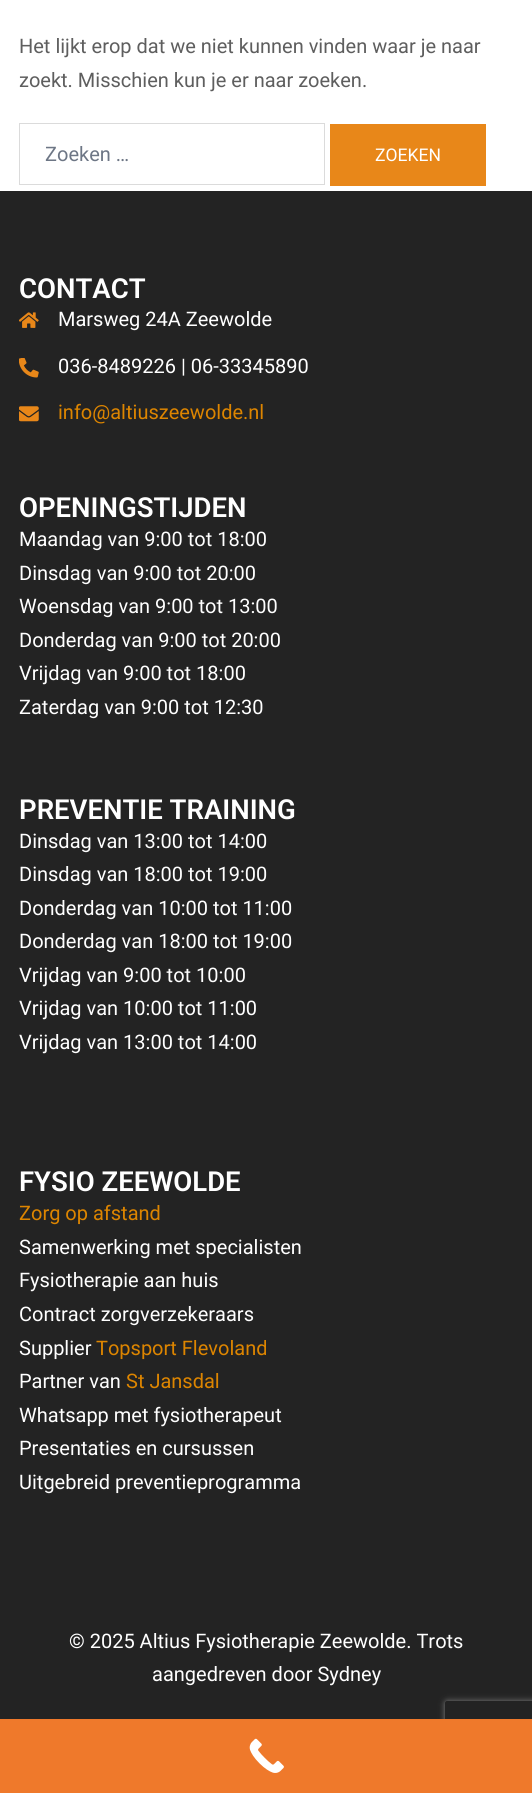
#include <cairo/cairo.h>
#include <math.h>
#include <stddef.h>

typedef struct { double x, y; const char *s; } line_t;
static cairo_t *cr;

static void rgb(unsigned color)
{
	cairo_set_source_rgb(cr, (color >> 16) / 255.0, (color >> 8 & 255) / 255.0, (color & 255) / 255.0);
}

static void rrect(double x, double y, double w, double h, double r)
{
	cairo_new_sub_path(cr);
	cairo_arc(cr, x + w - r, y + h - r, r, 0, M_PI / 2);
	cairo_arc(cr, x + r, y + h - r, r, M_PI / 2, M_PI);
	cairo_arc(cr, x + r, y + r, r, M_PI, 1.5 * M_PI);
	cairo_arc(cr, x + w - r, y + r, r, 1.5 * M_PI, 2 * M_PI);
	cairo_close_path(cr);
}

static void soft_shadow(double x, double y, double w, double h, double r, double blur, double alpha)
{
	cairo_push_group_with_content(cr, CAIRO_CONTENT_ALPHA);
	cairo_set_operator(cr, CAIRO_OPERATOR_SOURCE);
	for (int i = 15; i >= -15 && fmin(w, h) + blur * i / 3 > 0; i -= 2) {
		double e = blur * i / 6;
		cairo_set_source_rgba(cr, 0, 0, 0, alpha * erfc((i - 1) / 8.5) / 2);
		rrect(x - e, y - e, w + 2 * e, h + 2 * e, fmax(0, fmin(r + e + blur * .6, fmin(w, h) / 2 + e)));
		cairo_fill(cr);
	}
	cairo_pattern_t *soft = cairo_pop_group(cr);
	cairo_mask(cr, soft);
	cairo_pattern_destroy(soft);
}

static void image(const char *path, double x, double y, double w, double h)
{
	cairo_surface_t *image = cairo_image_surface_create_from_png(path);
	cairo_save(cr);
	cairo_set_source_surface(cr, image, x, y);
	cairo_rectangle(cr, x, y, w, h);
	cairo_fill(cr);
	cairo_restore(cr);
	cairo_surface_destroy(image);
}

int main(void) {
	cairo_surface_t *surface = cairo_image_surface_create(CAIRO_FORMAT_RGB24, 532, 1793);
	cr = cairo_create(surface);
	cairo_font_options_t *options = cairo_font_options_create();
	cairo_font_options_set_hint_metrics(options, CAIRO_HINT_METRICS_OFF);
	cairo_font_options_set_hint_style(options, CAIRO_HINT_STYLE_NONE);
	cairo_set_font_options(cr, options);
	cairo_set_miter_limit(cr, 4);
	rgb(0xffffff);
	cairo_paint(cr);
	cairo_rectangle(cr, 19.5, 123.5, 305, 61);
	rgb(0xdbdbdb);
	cairo_set_line_width(cr, 1);
	cairo_stroke(cr);
	rgb(0xe88719);
	cairo_rectangle(cr, 330, 124, 156, 62);
	cairo_fill(cr);
	rgb(0x232323);
	cairo_rectangle(cr, 0, 191, 532, 1528);
	cairo_fill(cr);
	image("img/1.png", 19, 312, 20, 16);
	image("img/2.png", 19, 358, 20, 20);
	image("img/3.png", 19, 406, 20, 16);
	cairo_save(cr);
	cairo_set_fill_rule(cr, CAIRO_FILL_RULE_EVEN_ODD);
	cairo_new_path(cr);
	cairo_move_to(cr, 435, 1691);
	cairo_line_to(cr, 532, 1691);
	cairo_line_to(cr, 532, 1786);
	cairo_line_to(cr, 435, 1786);
	cairo_close_path(cr);
	cairo_move_to(cr, 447.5, 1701);
	cairo_line_to(cr, 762.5, 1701);
	cairo_curve_to(cr, 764, 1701, 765, 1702, 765, 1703.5);
	cairo_line_to(cr, 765, 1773.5);
	cairo_curve_to(cr, 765, 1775, 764, 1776, 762.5, 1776);
	cairo_line_to(cr, 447.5, 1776);
	cairo_curve_to(cr, 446, 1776, 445, 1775, 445, 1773.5);
	cairo_line_to(cr, 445, 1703.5);
	cairo_curve_to(cr, 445, 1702, 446, 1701, 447.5, 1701);
	cairo_close_path(cr);
	cairo_clip(cr);
	rgb(0x808080);
	soft_shadow(445, 1701, 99, 75, 2.5, 3, 1);
	cairo_restore(cr);
	rgb(0xef792b);
	cairo_rectangle(cr, 0, 1719, 532, 74);
	cairo_fill(cr);
	image("img/4.png", 249, 1738, 35, 35);
	cairo_select_font_face(cr, "Roboto", CAIRO_FONT_SLANT_NORMAL, CAIRO_FONT_WEIGHT_NORMAL);
	cairo_set_font_size(cr, 20);
	rgb(0x5e5e5e);
	cairo_move_to(cr, 19, 53);
	cairo_show_text(cr, "Het lijkt erop dat we niet kunnen vinden waar je naar");
	cairo_move_to(cr, 19, 87);
	cairo_show_text(cr, "zoekt. Misschien kun je er naar zoeken.");
	rgb(0x6d7685);
	cairo_move_to(cr, 45, 161);
	cairo_show_text(cr, "Zoeken …");
	cairo_set_font_size(cr, 17.5);
	rgb(0xffffff);
	cairo_move_to(cr, 375, 161);
	cairo_show_text(cr, "ZOEKEN");
	cairo_select_font_face(cr, "Roboto SemiBold", CAIRO_FONT_SLANT_NORMAL, CAIRO_FONT_WEIGHT_NORMAL);
	cairo_set_font_size(cr, 27.5);
	cairo_move_to(cr, 19, 298);
	cairo_show_text(cr, "CONTACT");
	cairo_select_font_face(cr, "Roboto", CAIRO_FONT_SLANT_NORMAL, CAIRO_FONT_WEIGHT_NORMAL);
	cairo_set_font_size(cr, 20);
	cairo_move_to(cr, 58, 326);
	cairo_show_text(cr, "Marsweg 24A Zeewolde");
	cairo_move_to(cr, 58, 373);
	cairo_show_text(cr, "036-8489226 | 06-33345890");
	rgb(0xdd8500);
	cairo_move_to(cr, 58, 419);
	cairo_show_text(cr, "info@altiuszeewolde.nl");
	cairo_select_font_face(cr, "Roboto SemiBold", CAIRO_FONT_SLANT_NORMAL, CAIRO_FONT_WEIGHT_NORMAL);
	cairo_set_font_size(cr, 27.5);
	rgb(0xffffff);
	cairo_move_to(cr, 19, 517);
	cairo_show_text(cr, "OPENINGSTIJDEN");
	cairo_select_font_face(cr, "Roboto", CAIRO_FONT_SLANT_NORMAL, CAIRO_FONT_WEIGHT_NORMAL);
	cairo_set_font_size(cr, 20);
	{
		static const line_t items[] = {
			{19, 546, "Maandag van 9:00 tot 18:00"},
			{19, 580, "Dinsdag van 9:00 tot 20:00"},
			{19, 613, "Woensdag van 9:00 tot 13:00"},
			{19, 647, "Donderdag van 9:00 tot 20:00"},
			{19, 680, "Vrijdag van 9:00 tot 18:00"},
			{19, 714, "Zaterdag van 9:00 tot 12:30"},
		};
		for (size_t i = 0; i < sizeof items / sizeof *items; i++) {
			cairo_move_to(cr, items[i].x, items[i].y);
			cairo_show_text(cr, items[i].s);
		}
	}
	cairo_select_font_face(cr, "Roboto SemiBold", CAIRO_FONT_SLANT_NORMAL, CAIRO_FONT_WEIGHT_NORMAL);
	cairo_set_font_size(cr, 27.5);
	cairo_move_to(cr, 19, 819);
	cairo_show_text(cr, "PREVENTIE TRAINING");
	cairo_select_font_face(cr, "Roboto", CAIRO_FONT_SLANT_NORMAL, CAIRO_FONT_WEIGHT_NORMAL);
	cairo_set_font_size(cr, 20);
	{
		static const line_t items[] = {
			{19, 848, "Dinsdag van 13:00 tot 14:00"},
			{19, 881, "Dinsdag van 18:00 tot 19:00"},
			{19, 915, "Donderdag van 10:00 tot 11:00"},
			{19, 948, "Donderdag van 18:00 tot 19:00"},
			{19, 982, "Vrijdag van 9:00 tot 10:00"},
			{19, 1015, "Vrijdag van 10:00 tot 11:00"},
			{19, 1049, "Vrijdag van 13:00 tot 14:00"},
		};
		for (size_t i = 0; i < sizeof items / sizeof *items; i++) {
			cairo_move_to(cr, items[i].x, items[i].y);
			cairo_show_text(cr, items[i].s);
		}
	}
	cairo_select_font_face(cr, "Roboto SemiBold", CAIRO_FONT_SLANT_NORMAL, CAIRO_FONT_WEIGHT_NORMAL);
	cairo_set_font_size(cr, 27.5);
	cairo_move_to(cr, 19, 1191);
	cairo_show_text(cr, "FYSIO ZEEWOLDE");
	cairo_select_font_face(cr, "Roboto", CAIRO_FONT_SLANT_NORMAL, CAIRO_FONT_WEIGHT_NORMAL);
	cairo_set_font_size(cr, 20);
	rgb(0xdd8500);
	cairo_move_to(cr, 19, 1220);
	cairo_show_text(cr, "Zorg op afstand");
	rgb(0xffffff);
	{
		static const line_t items[] = {
			{19, 1254, "Samenwerking met specialisten"},
			{19, 1287, "Fysiotherapie aan huis"},
			{19, 1321, "Contract zorgverzekeraars"},
			{19, 1355, "Supplier"},
		};
		for (size_t i = 0; i < sizeof items / sizeof *items; i++) {
			cairo_move_to(cr, items[i].x, items[i].y);
			cairo_show_text(cr, items[i].s);
		}
	}
	rgb(0xdd8500);
	cairo_move_to(cr, 96, 1355);
	cairo_show_text(cr, "Topsport Flevoland");
	rgb(0xffffff);
	cairo_move_to(cr, 19, 1388);
	cairo_show_text(cr, "Partner van");
	rgb(0xdd8500);
	cairo_move_to(cr, 126, 1388);
	cairo_show_text(cr, "St Jansdal");
	rgb(0xffffff);
	{
		static const line_t items[] = {
			{19, 1422, "Whatsapp met fysiotherapeut"},
			{19, 1455, "Presentaties en cursussen"},
			{19, 1489, "Uitgebreid preventieprogramma"},
			{69, 1648, "© 2025 Altius Fysiotherapie Zeewolde. Trots"},
			{152, 1681, "aangedreven door Sydney"},
		};
		for (size_t i = 0; i < sizeof items / sizeof *items; i++) {
			cairo_move_to(cr, items[i].x, items[i].y);
			cairo_show_text(cr, items[i].s);
		}
	}
	cairo_surface_write_to_png(surface, "page.png");
	cairo_font_options_destroy(options);
	cairo_destroy(cr);
	cairo_surface_destroy(surface);
	return 0;
}
